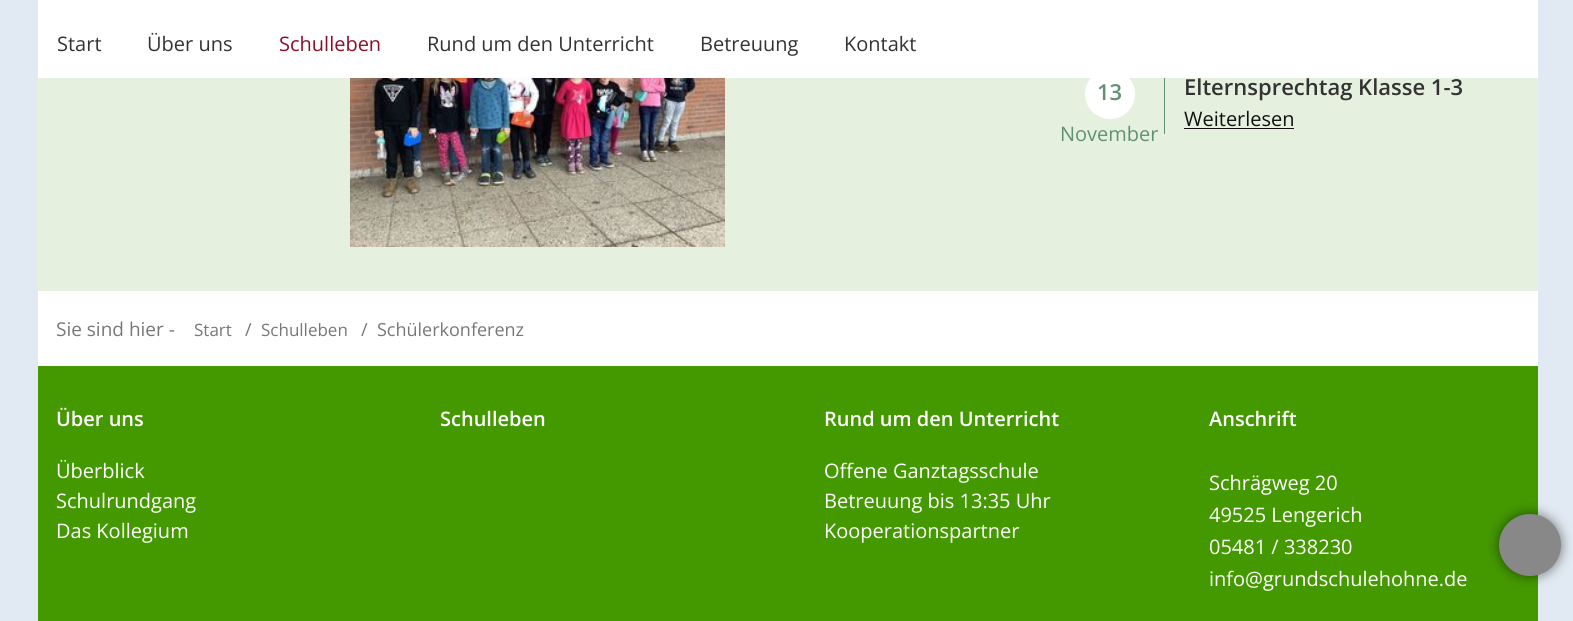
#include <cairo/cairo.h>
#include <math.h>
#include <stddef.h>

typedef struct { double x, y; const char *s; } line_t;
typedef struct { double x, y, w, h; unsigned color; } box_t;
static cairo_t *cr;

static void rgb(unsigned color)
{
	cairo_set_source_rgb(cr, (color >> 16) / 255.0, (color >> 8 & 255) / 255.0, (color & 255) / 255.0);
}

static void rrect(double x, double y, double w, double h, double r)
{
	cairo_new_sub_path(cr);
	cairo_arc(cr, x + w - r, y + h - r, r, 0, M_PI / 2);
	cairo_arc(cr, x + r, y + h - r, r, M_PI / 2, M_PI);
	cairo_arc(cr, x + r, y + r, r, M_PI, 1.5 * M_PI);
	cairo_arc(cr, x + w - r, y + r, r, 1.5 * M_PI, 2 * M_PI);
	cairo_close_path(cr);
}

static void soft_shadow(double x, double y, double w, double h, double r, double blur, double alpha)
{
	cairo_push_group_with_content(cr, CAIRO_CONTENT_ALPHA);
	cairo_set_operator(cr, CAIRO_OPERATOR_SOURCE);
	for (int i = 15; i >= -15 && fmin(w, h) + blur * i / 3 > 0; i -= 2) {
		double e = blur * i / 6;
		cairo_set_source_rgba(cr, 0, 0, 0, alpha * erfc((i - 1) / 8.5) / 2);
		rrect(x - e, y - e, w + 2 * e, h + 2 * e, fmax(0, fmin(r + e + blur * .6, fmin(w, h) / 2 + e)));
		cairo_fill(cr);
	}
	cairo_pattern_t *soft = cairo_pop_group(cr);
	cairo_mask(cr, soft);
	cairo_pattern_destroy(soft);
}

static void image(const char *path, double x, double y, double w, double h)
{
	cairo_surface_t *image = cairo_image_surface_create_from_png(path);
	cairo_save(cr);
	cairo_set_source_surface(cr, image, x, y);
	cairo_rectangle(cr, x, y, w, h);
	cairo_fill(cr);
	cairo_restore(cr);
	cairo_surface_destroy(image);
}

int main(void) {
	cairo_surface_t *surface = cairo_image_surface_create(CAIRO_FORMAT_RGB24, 1573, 621);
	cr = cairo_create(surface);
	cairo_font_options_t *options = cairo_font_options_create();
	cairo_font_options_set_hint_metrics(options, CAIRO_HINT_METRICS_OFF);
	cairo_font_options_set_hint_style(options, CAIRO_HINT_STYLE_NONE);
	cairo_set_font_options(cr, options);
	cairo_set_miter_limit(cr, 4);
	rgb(0xe1eaf2);
	cairo_paint(cr);
	rgb(0xffffff);
	cairo_rectangle(cr, 38, 291, 1500, 75);
	cairo_fill(cr);
	rgb(0xe6f0df);
	cairo_rectangle(cr, 38, 78, 1500, 213);
	cairo_fill(cr);
	rgb(0xffffff);
	cairo_arc(cr, 1110, 94, 25, 0, 2 * M_PI);
	cairo_fill(cr);
	cairo_rectangle(cr, 38, 0, 1500, 78);
	cairo_fill(cr);
	image("img/1.png", 350, 78, 375, 169);
	{
		static const box_t items[] = {
			{1164, 78, 1, 56, 0x609174},
			{1184, 128, 110, 1, 0x111111},
			{38, 366, 1500, 255, 0x449900},
		};
		for (size_t i = 0; i < sizeof items / sizeof *items; i++) {
			rgb(items[i].color);
			cairo_rectangle(cr, items[i].x, items[i].y, items[i].w, items[i].h);
			cairo_fill(cr);
		}
	}
	rgb(0x000000);
	soft_shadow(1499, 514, 62, 62, 31, 6, 0.5);
	rgb(0x888888);
	cairo_arc(cr, 1530, 545, 31, 0, 2 * M_PI);
	cairo_fill(cr);
	cairo_select_font_face(cr, "Open Sans", CAIRO_FONT_SLANT_NORMAL, CAIRO_FONT_WEIGHT_NORMAL);
	cairo_set_font_size(cr, 20);
	rgb(0x333333);
	cairo_move_to(cr, 57, 51);
	cairo_show_text(cr, "Start");
	cairo_move_to(cr, 147, 51);
	cairo_show_text(cr, "Über uns");
	rgb(0x890f2d);
	cairo_move_to(cr, 279, 51);
	cairo_show_text(cr, "Schulleben");
	rgb(0x333333);
	{
		static const line_t items[] = {
			{427, 51, "Rund um den Unterricht"},
			{700, 51, "Betreuung"},
			{844, 51, "Kontakt"},
		};
		for (size_t i = 0; i < sizeof items / sizeof *items; i++) {
			cairo_move_to(cr, items[i].x, items[i].y);
			cairo_show_text(cr, items[i].s);
		}
	}
	cairo_select_font_face(cr, "Open Sans SemiBold", CAIRO_FONT_SLANT_NORMAL, CAIRO_FONT_WEIGHT_NORMAL);
	cairo_set_font_size(cr, 22);
	rgb(0x609174);
	cairo_move_to(cr, 1097, 100);
	cairo_show_text(cr, "13");
	cairo_select_font_face(cr, "Open Sans", CAIRO_FONT_SLANT_NORMAL, CAIRO_FONT_WEIGHT_NORMAL);
	cairo_set_font_size(cr, 20);
	cairo_move_to(cr, 1060, 141);
	cairo_show_text(cr, "November");
	cairo_select_font_face(cr, "Open Sans SemiBold", CAIRO_FONT_SLANT_NORMAL, CAIRO_FONT_WEIGHT_NORMAL);
	cairo_set_font_size(cr, 22);
	rgb(0x333333);
	cairo_move_to(cr, 1184, 95);
	cairo_show_text(cr, "Elternsprechtag Klasse 1-3");
	cairo_select_font_face(cr, "Open Sans", CAIRO_FONT_SLANT_NORMAL, CAIRO_FONT_WEIGHT_NORMAL);
	cairo_set_font_size(cr, 20);
	rgb(0x111111);
	cairo_move_to(cr, 1184, 126);
	cairo_show_text(cr, "Weiterlesen");
	cairo_set_font_size(cr, 19);
	rgb(0x777777);
	cairo_move_to(cr, 56, 336);
	cairo_show_text(cr, "Sie sind hier -");
	cairo_set_font_size(cr, 17);
	cairo_move_to(cr, 194, 336);
	cairo_show_text(cr, "Start");
	cairo_set_font_size(cr, 18);
	cairo_move_to(cr, 245, 336);
	cairo_show_text(cr, "/");
	cairo_set_font_size(cr, 17);
	cairo_move_to(cr, 261, 336);
	cairo_show_text(cr, "Schulleben");
	cairo_set_font_size(cr, 18);
	cairo_move_to(cr, 361, 336);
	cairo_show_text(cr, "/");
	cairo_move_to(cr, 377, 336);
	cairo_show_text(cr, "Schülerkonferenz");
	cairo_select_font_face(cr, "Open Sans SemiBold", CAIRO_FONT_SLANT_NORMAL, CAIRO_FONT_WEIGHT_NORMAL);
	cairo_set_font_size(cr, 20);
	rgb(0xffffff);
	cairo_move_to(cr, 56, 426);
	cairo_show_text(cr, "Über uns");
	cairo_select_font_face(cr, "Open Sans", CAIRO_FONT_SLANT_NORMAL, CAIRO_FONT_WEIGHT_NORMAL);
	{
		static const line_t items[] = {
			{56, 478, "Überblick"},
			{56, 508, "Schulrundgang"},
			{56, 538, "Das Kollegium"},
		};
		for (size_t i = 0; i < sizeof items / sizeof *items; i++) {
			cairo_move_to(cr, items[i].x, items[i].y);
			cairo_show_text(cr, items[i].s);
		}
	}
	cairo_select_font_face(cr, "Open Sans SemiBold", CAIRO_FONT_SLANT_NORMAL, CAIRO_FONT_WEIGHT_NORMAL);
	cairo_move_to(cr, 440, 426);
	cairo_show_text(cr, "Schulleben");
	cairo_move_to(cr, 824, 426);
	cairo_show_text(cr, "Rund um den Unterricht");
	cairo_select_font_face(cr, "Open Sans", CAIRO_FONT_SLANT_NORMAL, CAIRO_FONT_WEIGHT_NORMAL);
	{
		static const line_t items[] = {
			{824, 478, "Offene Ganztagsschule"},
			{824, 508, "Betreuung bis 13:35 Uhr"},
			{824, 538, "Kooperationspartner"},
		};
		for (size_t i = 0; i < sizeof items / sizeof *items; i++) {
			cairo_move_to(cr, items[i].x, items[i].y);
			cairo_show_text(cr, items[i].s);
		}
	}
	cairo_select_font_face(cr, "Open Sans SemiBold", CAIRO_FONT_SLANT_NORMAL, CAIRO_FONT_WEIGHT_NORMAL);
	cairo_move_to(cr, 1209, 426);
	cairo_show_text(cr, "Anschrift");
	cairo_select_font_face(cr, "Open Sans", CAIRO_FONT_SLANT_NORMAL, CAIRO_FONT_WEIGHT_NORMAL);
	{
		static const line_t items[] = {
			{1209, 490, "Schrägweg 20"},
			{1209, 522, "49525 Lengerich"},
			{1209, 554, "05481 / 338230"},
			{1209, 586, "info@grundschulehohne.de"},
		};
		for (size_t i = 0; i < sizeof items / sizeof *items; i++) {
			cairo_move_to(cr, items[i].x, items[i].y);
			cairo_show_text(cr, items[i].s);
		}
	}
	cairo_surface_write_to_png(surface, "page.png");
	cairo_font_options_destroy(options);
	cairo_destroy(cr);
	cairo_surface_destroy(surface);
	return 0;
}
